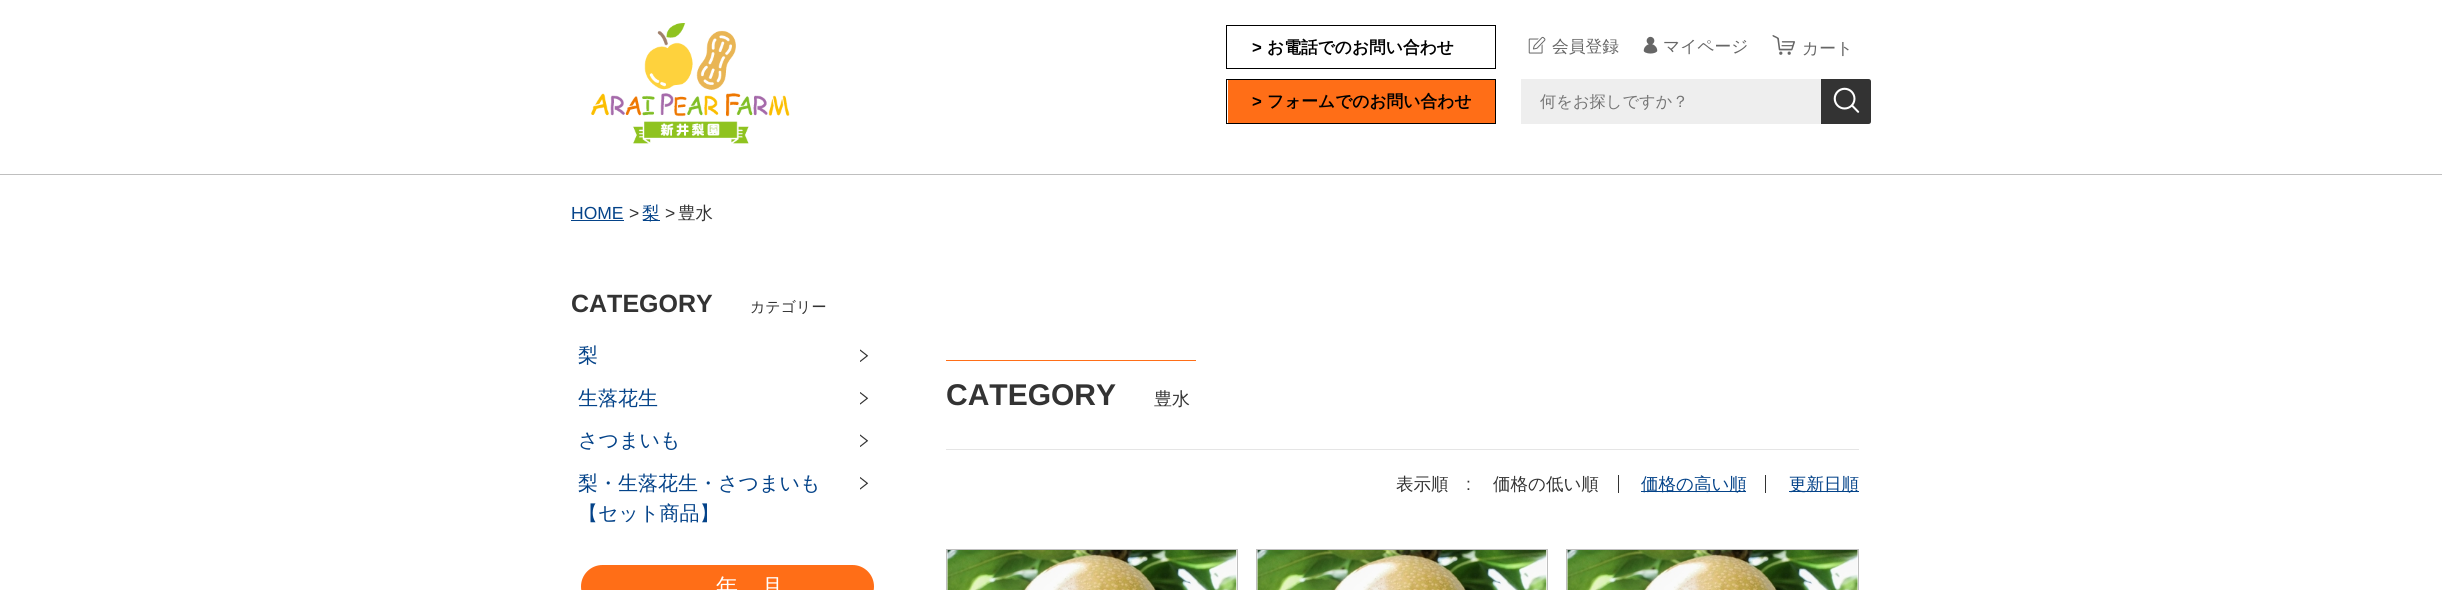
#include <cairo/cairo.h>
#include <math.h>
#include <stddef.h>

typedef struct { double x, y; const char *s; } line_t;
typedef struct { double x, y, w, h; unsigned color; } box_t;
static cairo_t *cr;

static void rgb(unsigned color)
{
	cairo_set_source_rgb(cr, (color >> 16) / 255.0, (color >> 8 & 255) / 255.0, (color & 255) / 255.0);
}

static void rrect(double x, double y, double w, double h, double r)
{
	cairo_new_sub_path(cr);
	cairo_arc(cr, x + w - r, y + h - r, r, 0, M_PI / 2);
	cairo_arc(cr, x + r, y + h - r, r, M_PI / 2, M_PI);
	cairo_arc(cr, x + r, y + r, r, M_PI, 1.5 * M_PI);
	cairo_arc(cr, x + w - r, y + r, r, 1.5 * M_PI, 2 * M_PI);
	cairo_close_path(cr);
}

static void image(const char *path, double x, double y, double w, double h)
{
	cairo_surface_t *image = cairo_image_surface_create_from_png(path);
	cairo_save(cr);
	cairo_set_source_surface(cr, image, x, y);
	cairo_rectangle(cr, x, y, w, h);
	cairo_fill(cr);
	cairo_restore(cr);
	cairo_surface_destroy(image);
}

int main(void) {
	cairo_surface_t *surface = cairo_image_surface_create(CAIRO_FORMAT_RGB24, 2442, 590);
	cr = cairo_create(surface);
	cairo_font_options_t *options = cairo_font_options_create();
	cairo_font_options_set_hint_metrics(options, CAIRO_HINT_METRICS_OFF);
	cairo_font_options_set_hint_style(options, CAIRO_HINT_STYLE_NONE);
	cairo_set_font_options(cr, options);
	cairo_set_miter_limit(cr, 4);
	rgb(0xffffff);
	cairo_paint(cr);
	image("img/1.png", 591, 23, 199, 121);
	cairo_rectangle(cr, 1226.5, 25.5, 269, 43);
	rgb(0x000000);
	cairo_set_line_width(cr, 1);
	cairo_stroke(cr);
	cairo_rectangle(cr, 1226.5, 79.5, 269, 44);
	cairo_stroke(cr);
	rgb(0xff6e17);
	cairo_rectangle(cr, 1228, 80, 267, 43);
	cairo_fill(cr);
	image("img/2.png", 1528, 36, 18, 18);
	image("img/3.png", 1643, 36, 15, 18);
	image("img/4.png", 1772, 35, 23, 20);
	rgb(0xeeeeee);
	cairo_rectangle(cr, 1521, 79, 300, 45);
	cairo_fill(cr);
	rgb(0x333333);
	cairo_new_path(cr);
	cairo_move_to(cr, 1821, 79);
	cairo_line_to(cr, 1868.5, 79);
	cairo_curve_to(cr, 1870, 79, 1871, 80, 1871, 81.5);
	cairo_line_to(cr, 1871, 121.5);
	cairo_curve_to(cr, 1871, 123, 1870, 124, 1868.5, 124);
	cairo_line_to(cr, 1821, 124);
	cairo_close_path(cr);
	cairo_fill(cr);
	image("img/5.png", 1833, 87, 27, 26);
	{
		static const box_t items[] = {
			{0, 174, 2442, 1, 0xbfbfbf},
			{571, 220, 53, 1, 0x044389},
			{643, 220, 17, 1, 0x044389},
		};
		for (size_t i = 0; i < sizeof items / sizeof *items; i++) {
			rgb(items[i].color);
			cairo_rectangle(cr, items[i].x, items[i].y, items[i].w, items[i].h);
			cairo_fill(cr);
		}
	}
	image("img/6.png", 860, 349, 9, 13);
	image("img/7.png", 860, 392, 9, 13);
	image("img/6.png", 860, 434, 9, 13);
	image("img/7.png", 860, 477, 9, 13);
	rgb(0xff6e17);
	rrect(581, 565, 293, 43, 21.5);
	cairo_fill(cr);
	{
		static const box_t items[] = {
			{946, 360, 250, 1, 0xff6e17},
			{946, 449, 913, 1, 0xe5e5e5},
			{1618, 475, 1, 18, 0x333333},
			{1765, 475, 1, 18, 0x333333},
			{1641, 491, 105, 1, 0x044389},
			{1789, 491, 70, 1, 0x044389},
		};
		for (size_t i = 0; i < sizeof items / sizeof *items; i++) {
			rgb(items[i].color);
			cairo_rectangle(cr, items[i].x, items[i].y, items[i].w, items[i].h);
			cairo_fill(cr);
		}
	}
	cairo_rectangle(cr, 946.5, 549.5, 291, 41);
	rgb(0xbfbfbf);
	cairo_stroke(cr);
	image("img/8.png", 947, 550, 290, 40);
	cairo_rectangle(cr, 1256.5, 549.5, 291, 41);
	cairo_stroke(cr);
	image("img/8.png", 1257, 550, 290, 40);
	cairo_rectangle(cr, 1566.5, 549.5, 292, 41);
	cairo_stroke(cr);
	image("img/9.png", 1567, 550, 291, 40);
	cairo_select_font_face(cr, "Liberation Sans", CAIRO_FONT_SLANT_NORMAL, CAIRO_FONT_WEIGHT_BOLD);
	cairo_set_font_size(cr, 16.75);
	rgb(0x000000);
	cairo_move_to(cr, 1252, 53);
	cairo_show_text(cr, ">");
	cairo_select_font_face(cr, "WenQuanYi Zen Hei", CAIRO_FONT_SLANT_NORMAL, CAIRO_FONT_WEIGHT_BOLD);
	cairo_move_to(cr, 1267, 53);
	cairo_show_text(cr, "お電話でのお問い合わせ");
	cairo_select_font_face(cr, "Liberation Sans", CAIRO_FONT_SLANT_NORMAL, CAIRO_FONT_WEIGHT_BOLD);
	cairo_move_to(cr, 1252, 107);
	cairo_show_text(cr, ">");
	cairo_select_font_face(cr, "WenQuanYi Zen Hei", CAIRO_FONT_SLANT_NORMAL, CAIRO_FONT_WEIGHT_BOLD);
	cairo_move_to(cr, 1267, 107);
	cairo_show_text(cr, "フォームでのお問い合わせ");
	cairo_select_font_face(cr, "WenQuanYi Zen Hei Medium", CAIRO_FONT_SLANT_NORMAL, CAIRO_FONT_WEIGHT_NORMAL);
	rgb(0x666666);
	{
		static const line_t items[] = {
			{1552, 52, "会員登録"},
			{1663, 52, "マイページ"},
			{1802, 54, "カート"},
		};
		for (size_t i = 0; i < sizeof items / sizeof *items; i++) {
			cairo_move_to(cr, items[i].x, items[i].y);
			cairo_show_text(cr, items[i].s);
		}
	}
	cairo_set_font_size(cr, 16.25);
	rgb(0x757575);
	cairo_move_to(cr, 1540, 107);
	cairo_show_text(cr, "何をお探しですか？");
	cairo_select_font_face(cr, "Liberation Sans", CAIRO_FONT_SLANT_NORMAL, CAIRO_FONT_WEIGHT_NORMAL);
	cairo_set_font_size(cr, 17.5);
	rgb(0x044389);
	cairo_move_to(cr, 571, 219);
	cairo_show_text(cr, "HOME");
	rgb(0x333333);
	cairo_move_to(cr, 629, 219);
	cairo_show_text(cr, ">");
	cairo_select_font_face(cr, "WenQuanYi Zen Hei Medium", CAIRO_FONT_SLANT_NORMAL, CAIRO_FONT_WEIGHT_NORMAL);
	rgb(0x044389);
	cairo_move_to(cr, 642, 219);
	cairo_show_text(cr, "梨");
	cairo_select_font_face(cr, "Liberation Sans", CAIRO_FONT_SLANT_NORMAL, CAIRO_FONT_WEIGHT_NORMAL);
	rgb(0x333333);
	cairo_move_to(cr, 665, 219);
	cairo_show_text(cr, ">");
	cairo_select_font_face(cr, "WenQuanYi Zen Hei Medium", CAIRO_FONT_SLANT_NORMAL, CAIRO_FONT_WEIGHT_NORMAL);
	cairo_move_to(cr, 678, 219);
	cairo_show_text(cr, "豊水");
	cairo_select_font_face(cr, "Liberation Sans", CAIRO_FONT_SLANT_NORMAL, CAIRO_FONT_WEIGHT_BOLD);
	cairo_set_font_size(cr, 25);
	cairo_move_to(cr, 571, 312);
	cairo_show_text(cr, "CATEGORY");
	cairo_select_font_face(cr, "WenQuanYi Zen Hei Medium", CAIRO_FONT_SLANT_NORMAL, CAIRO_FONT_WEIGHT_NORMAL);
	cairo_set_font_size(cr, 15);
	cairo_move_to(cr, 750, 312);
	cairo_show_text(cr, "カテゴリー");
	cairo_set_font_size(cr, 20);
	rgb(0x044389);
	{
		static const line_t items[] = {
			{578, 362, "梨"},
			{578, 405, "生落花生"},
			{578, 447, "さつまいも"},
			{578, 490, "梨・生落花生・さつまいも"},
			{578, 520, "【セット商品】"},
		};
		for (size_t i = 0; i < sizeof items / sizeof *items; i++) {
			cairo_move_to(cr, items[i].x, items[i].y);
			cairo_show_text(cr, items[i].s);
		}
	}
	cairo_set_font_size(cr, 22);
	rgb(0xffffff);
	cairo_move_to(cr, 716, 594);
	cairo_show_text(cr, "年");
	cairo_move_to(cr, 761, 594);
	cairo_show_text(cr, "月");
	cairo_select_font_face(cr, "Liberation Sans", CAIRO_FONT_SLANT_NORMAL, CAIRO_FONT_WEIGHT_BOLD);
	cairo_set_font_size(cr, 30);
	rgb(0x333333);
	cairo_move_to(cr, 946, 405);
	cairo_show_text(cr, "CATEGORY");
	cairo_select_font_face(cr, "WenQuanYi Zen Hei Medium", CAIRO_FONT_SLANT_NORMAL, CAIRO_FONT_WEIGHT_NORMAL);
	cairo_set_font_size(cr, 18);
	cairo_move_to(cr, 1154, 405);
	cairo_show_text(cr, "豊水");
	cairo_set_font_size(cr, 17.5);
	cairo_move_to(cr, 1396, 490);
	cairo_show_text(cr, "表示順");
	cairo_select_font_face(cr, "Liberation Sans", CAIRO_FONT_SLANT_NORMAL, CAIRO_FONT_WEIGHT_NORMAL);
	cairo_move_to(cr, 1466, 490);
	cairo_show_text(cr, ":");
	cairo_select_font_face(cr, "WenQuanYi Zen Hei Medium", CAIRO_FONT_SLANT_NORMAL, CAIRO_FONT_WEIGHT_NORMAL);
	cairo_move_to(cr, 1493, 490);
	cairo_show_text(cr, "価格の低い順");
	rgb(0x044389);
	cairo_move_to(cr, 1641, 490);
	cairo_show_text(cr, "価格の高い順");
	cairo_move_to(cr, 1789, 490);
	cairo_show_text(cr, "更新日順");
	cairo_surface_write_to_png(surface, "page.png");
	cairo_font_options_destroy(options);
	cairo_destroy(cr);
	cairo_surface_destroy(surface);
	return 0;
}
